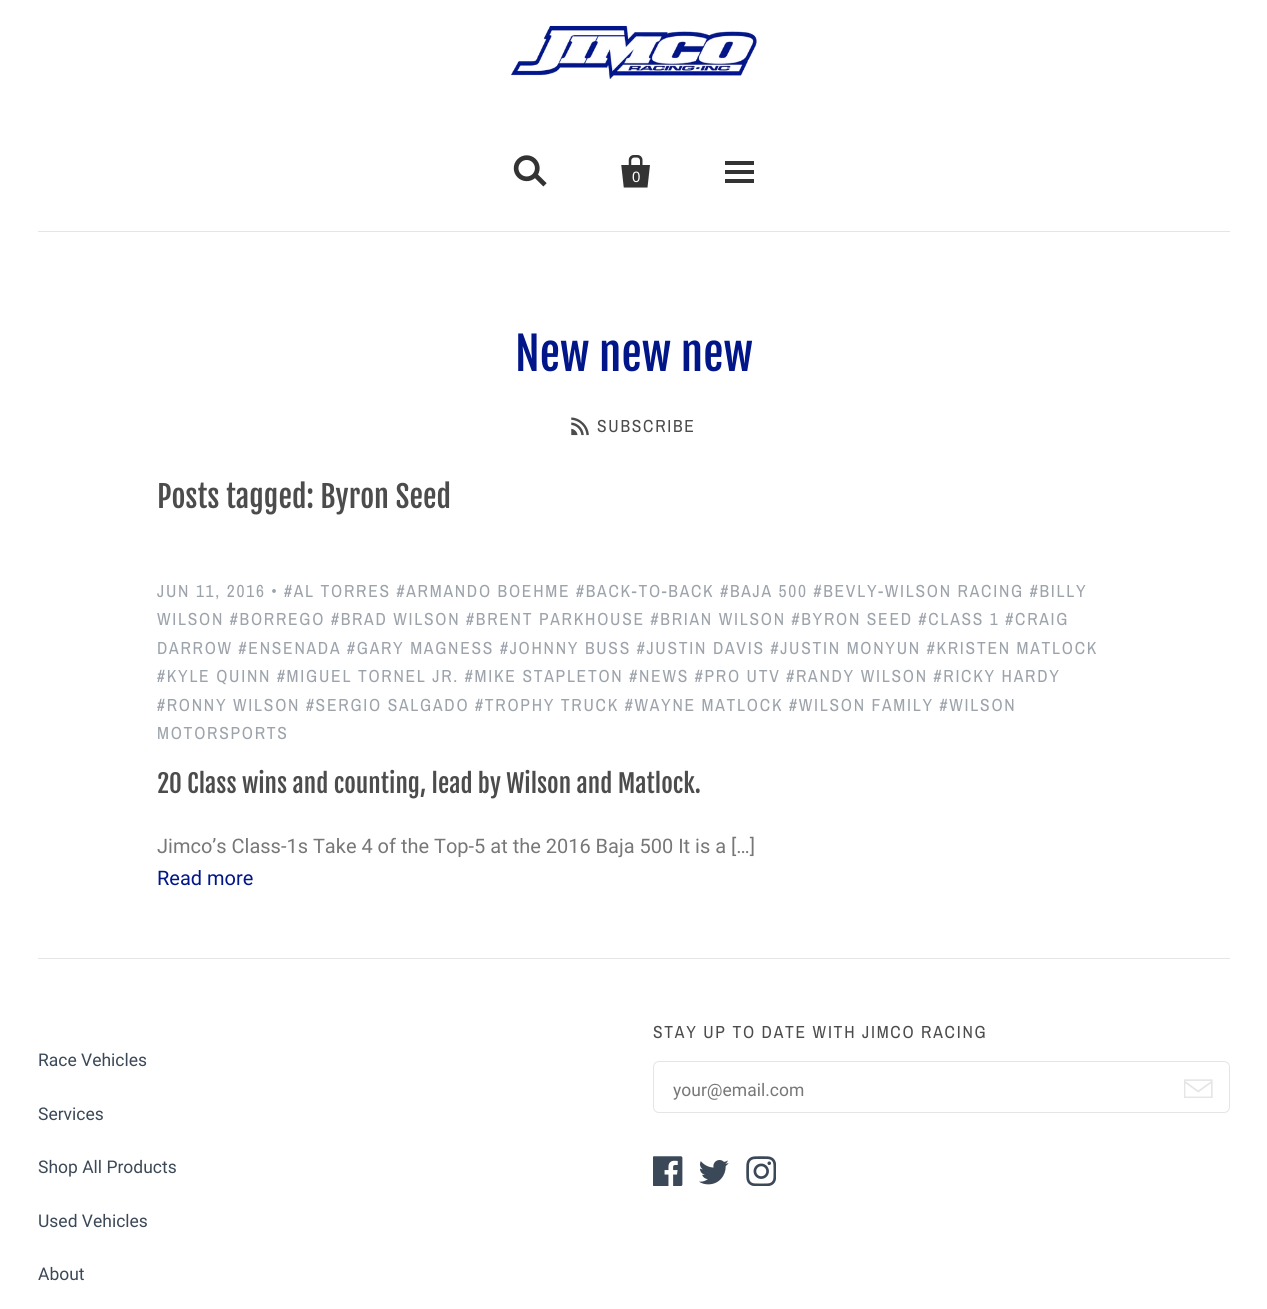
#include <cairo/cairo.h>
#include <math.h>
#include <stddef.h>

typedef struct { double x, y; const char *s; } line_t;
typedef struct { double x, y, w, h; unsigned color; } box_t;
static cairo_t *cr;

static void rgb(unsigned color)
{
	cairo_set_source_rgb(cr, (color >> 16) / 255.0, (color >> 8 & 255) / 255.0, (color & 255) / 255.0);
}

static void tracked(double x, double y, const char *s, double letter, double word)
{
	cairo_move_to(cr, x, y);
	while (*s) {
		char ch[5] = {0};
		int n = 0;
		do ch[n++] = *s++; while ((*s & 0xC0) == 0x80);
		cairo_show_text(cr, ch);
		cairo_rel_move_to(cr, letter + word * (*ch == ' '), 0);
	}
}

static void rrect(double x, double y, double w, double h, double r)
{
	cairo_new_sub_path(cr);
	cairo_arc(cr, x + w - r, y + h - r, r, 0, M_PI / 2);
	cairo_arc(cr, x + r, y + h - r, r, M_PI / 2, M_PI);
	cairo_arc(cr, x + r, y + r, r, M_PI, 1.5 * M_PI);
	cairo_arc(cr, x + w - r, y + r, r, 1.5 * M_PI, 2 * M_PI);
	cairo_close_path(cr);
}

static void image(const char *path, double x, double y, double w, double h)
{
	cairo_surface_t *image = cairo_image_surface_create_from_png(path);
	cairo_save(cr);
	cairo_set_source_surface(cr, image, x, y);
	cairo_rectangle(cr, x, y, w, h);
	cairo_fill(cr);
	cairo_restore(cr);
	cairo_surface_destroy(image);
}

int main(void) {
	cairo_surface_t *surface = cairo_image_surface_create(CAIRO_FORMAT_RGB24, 1267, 1309);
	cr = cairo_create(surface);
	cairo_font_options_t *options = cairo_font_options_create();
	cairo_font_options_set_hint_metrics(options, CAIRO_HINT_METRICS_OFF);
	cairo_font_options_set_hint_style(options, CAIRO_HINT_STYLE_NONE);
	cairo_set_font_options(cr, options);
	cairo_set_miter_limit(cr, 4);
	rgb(0xffffff);
	cairo_paint(cr);
	rgb(0xe5e5e5);
	cairo_rectangle(cr, 38, 231, 1192, 1);
	cairo_fill(cr);
	image("img/1.png", 510, 25, 247, 54);
	image("img/2.png", 513, 155, 34, 32);
	image("img/3.png", 621, 155, 29, 33);
	{
		static const box_t items[] = {
			{725, 170, 29, 4, 0x333333},
			{725, 161, 29, 4, 0x333333},
			{725, 179, 29, 4, 0x333333},
		};
		for (size_t i = 0; i < sizeof items / sizeof *items; i++) {
			rgb(items[i].color);
			cairo_rectangle(cr, items[i].x, items[i].y, items[i].w, items[i].h);
			cairo_fill(cr);
		}
	}
	image("img/4.png", 571, 417, 18, 19);
	rgb(0xe5e5e5);
	cairo_rectangle(cr, 38, 958, 1192, 1);
	cairo_fill(cr);
	rrect(653.5, 1061.5, 576, 51, 5.5);
	cairo_set_line_width(cr, 1);
	cairo_stroke(cr);
	image("img/5.png", 1184, 1079, 29, 19);
	image("img/6.png", 653, 1156, 30, 30);
	image("img/7.png", 699, 1160, 30, 25);
	image("img/8.png", 746, 1156, 30, 30);
	cairo_select_font_face(cr, "Liberation Sans", CAIRO_FONT_SLANT_NORMAL, CAIRO_FONT_WEIGHT_NORMAL);
	cairo_set_font_size(cr, 15);
	rgb(0xffffff);
	cairo_move_to(cr, 632, 182);
	cairo_show_text(cr, "0");
	cairo_select_font_face(cr, "Fjalla One", CAIRO_FONT_SLANT_NORMAL, CAIRO_FONT_WEIGHT_NORMAL);
	cairo_set_font_size(cr, 45);
	rgb(0x001689);
	cairo_move_to(cr, 515, 371);
	cairo_show_text(cr, "New new new");
	cairo_select_font_face(cr, "Archivo Narrow", CAIRO_FONT_SLANT_NORMAL, CAIRO_FONT_WEIGHT_NORMAL);
	cairo_set_font_size(cr, 17.5);
	rgb(0x4c4c4c);
	tracked(597, 432, "SUBSCRIBE", 1.75, 0);
	cairo_select_font_face(cr, "Fjalla One", CAIRO_FONT_SLANT_NORMAL, CAIRO_FONT_WEIGHT_NORMAL);
	cairo_set_font_size(cr, 30);
	cairo_move_to(cr, 157, 508);
	cairo_show_text(cr, "Posts tagged: Byron Seed");
	cairo_select_font_face(cr, "Archivo Narrow", CAIRO_FONT_SLANT_NORMAL, CAIRO_FONT_WEIGHT_NORMAL);
	cairo_set_font_size(cr, 17.5);
	rgb(0x9da3ab);
	{
		static const line_t items[] = {
			{157, 597, "JUN 11, 2016 • #AL TORRES #ARMANDO BOEHME #BACK-TO-BACK #BAJA 500 #BEVLY-WILSON RACING #BILLY"},
			{157, 625, "WILSON #BORREGO #BRAD WILSON #BRENT PARKHOUSE #BRIAN WILSON #BYRON SEED #CLASS 1 #CRAIG"},
			{157, 654, "DARROW #ENSENADA #GARY MAGNESS #JOHNNY BUSS #JUSTIN DAVIS #JUSTIN MONYUN #KRISTEN MATLOCK"},
			{157, 682, "#KYLE QUINN #MIGUEL TORNEL JR. #MIKE STAPLETON #NEWS #PRO UTV #RANDY WILSON #RICKY HARDY"},
			{157, 711, "#RONNY WILSON #SERGIO SALGADO #TROPHY TRUCK #WAYNE MATLOCK #WILSON FAMILY #WILSON"},
			{157, 739, "MOTORSPORTS"},
		};
		for (size_t i = 0; i < sizeof items / sizeof *items; i++) {
			tracked(items[i].x, items[i].y, items[i].s, 1.75, 0);
		}
	}
	cairo_select_font_face(cr, "Fjalla One", CAIRO_FONT_SLANT_NORMAL, CAIRO_FONT_WEIGHT_NORMAL);
	cairo_set_font_size(cr, 25);
	rgb(0x4c4c4c);
	cairo_move_to(cr, 157, 793);
	cairo_show_text(cr, "20 Class wins and counting, lead by Wilson and Matlock.");
	cairo_select_font_face(cr, "Roboto", CAIRO_FONT_SLANT_NORMAL, CAIRO_FONT_WEIGHT_NORMAL);
	cairo_set_font_size(cr, 20);
	rgb(0x777777);
	cairo_move_to(cr, 157, 853);
	cairo_show_text(cr, "Jimco’s Class-1s Take 4 of the Top-5 at the 2016 Baja 500 It is a […]");
	rgb(0x001689);
	cairo_move_to(cr, 157, 885);
	cairo_show_text(cr, "Read more");
	cairo_set_font_size(cr, 17.5);
	rgb(0x3b4858);
	{
		static const line_t items[] = {
			{38, 1066, "Race Vehicles"},
			{38, 1120, "Services"},
			{38, 1173, "Shop All Products"},
			{38, 1227, "Used Vehicles"},
			{38, 1280, "About"},
		};
		for (size_t i = 0; i < sizeof items / sizeof *items; i++) {
			cairo_move_to(cr, items[i].x, items[i].y);
			cairo_show_text(cr, items[i].s);
		}
	}
	cairo_select_font_face(cr, "Archivo Narrow", CAIRO_FONT_SLANT_NORMAL, CAIRO_FONT_WEIGHT_NORMAL);
	rgb(0x4c4c4c);
	tracked(653, 1038, "STAY UP TO DATE WITH JIMCO RACING", 1.75, 0);
	cairo_select_font_face(cr, "Roboto", CAIRO_FONT_SLANT_NORMAL, CAIRO_FONT_WEIGHT_NORMAL);
	rgb(0x777777);
	cairo_move_to(cr, 673, 1096);
	cairo_show_text(cr, "your@email.com");
	cairo_surface_write_to_png(surface, "page.png");
	cairo_font_options_destroy(options);
	cairo_destroy(cr);
	cairo_surface_destroy(surface);
	return 0;
}
